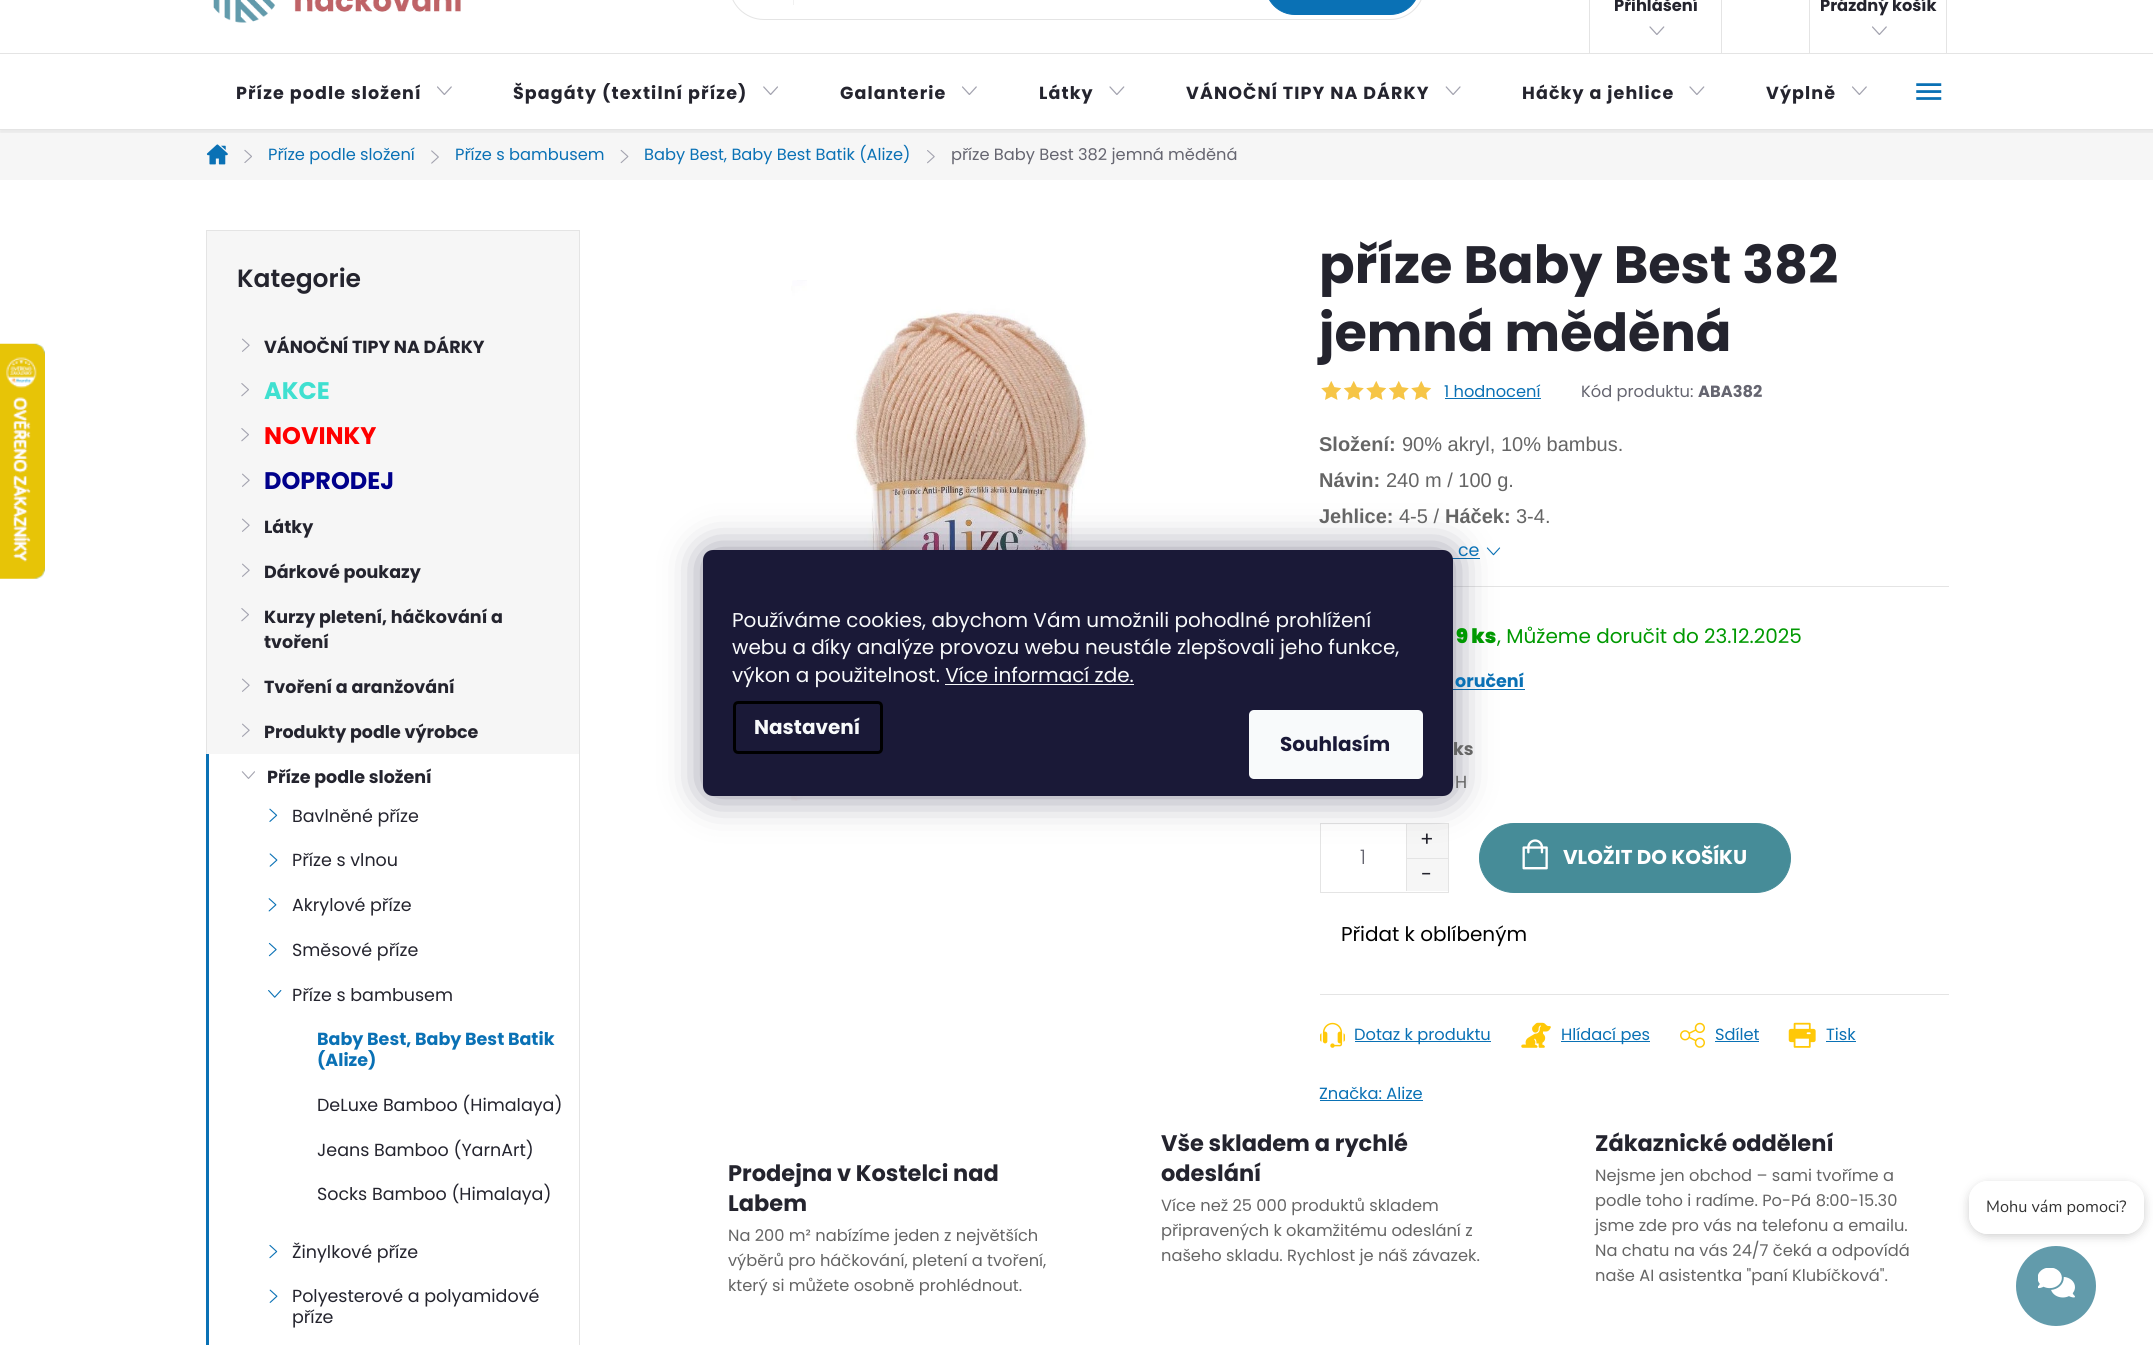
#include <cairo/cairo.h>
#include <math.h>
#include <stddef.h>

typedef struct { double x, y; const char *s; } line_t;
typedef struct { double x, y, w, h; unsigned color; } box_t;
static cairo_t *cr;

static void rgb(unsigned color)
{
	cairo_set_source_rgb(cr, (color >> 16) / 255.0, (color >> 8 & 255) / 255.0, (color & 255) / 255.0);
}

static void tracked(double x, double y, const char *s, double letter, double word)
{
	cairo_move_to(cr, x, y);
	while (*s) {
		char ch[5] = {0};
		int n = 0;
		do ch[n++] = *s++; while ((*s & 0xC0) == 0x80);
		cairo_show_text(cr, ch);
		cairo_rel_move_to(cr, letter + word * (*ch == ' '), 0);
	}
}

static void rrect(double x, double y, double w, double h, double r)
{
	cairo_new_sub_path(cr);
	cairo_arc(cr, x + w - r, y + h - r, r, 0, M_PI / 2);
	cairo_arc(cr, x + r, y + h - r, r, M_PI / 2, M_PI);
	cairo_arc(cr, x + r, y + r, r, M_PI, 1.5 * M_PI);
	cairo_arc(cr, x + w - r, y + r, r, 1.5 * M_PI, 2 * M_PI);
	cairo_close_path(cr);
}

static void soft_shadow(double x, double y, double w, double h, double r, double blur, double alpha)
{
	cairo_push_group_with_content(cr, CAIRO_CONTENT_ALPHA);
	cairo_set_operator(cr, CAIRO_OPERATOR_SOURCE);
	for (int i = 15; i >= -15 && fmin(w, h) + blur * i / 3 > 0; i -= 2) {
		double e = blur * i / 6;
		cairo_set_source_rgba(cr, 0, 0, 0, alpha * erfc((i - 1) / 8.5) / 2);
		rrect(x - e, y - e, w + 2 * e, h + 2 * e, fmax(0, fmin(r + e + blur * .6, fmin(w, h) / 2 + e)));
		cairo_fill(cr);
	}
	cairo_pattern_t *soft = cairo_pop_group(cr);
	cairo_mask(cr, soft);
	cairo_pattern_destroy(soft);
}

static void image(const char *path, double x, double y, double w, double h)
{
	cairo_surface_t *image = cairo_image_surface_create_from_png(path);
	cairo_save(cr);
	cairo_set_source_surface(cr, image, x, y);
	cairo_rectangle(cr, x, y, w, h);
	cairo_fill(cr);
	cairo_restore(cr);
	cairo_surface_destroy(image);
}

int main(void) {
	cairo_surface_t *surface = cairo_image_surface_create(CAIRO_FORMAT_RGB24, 2153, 1345);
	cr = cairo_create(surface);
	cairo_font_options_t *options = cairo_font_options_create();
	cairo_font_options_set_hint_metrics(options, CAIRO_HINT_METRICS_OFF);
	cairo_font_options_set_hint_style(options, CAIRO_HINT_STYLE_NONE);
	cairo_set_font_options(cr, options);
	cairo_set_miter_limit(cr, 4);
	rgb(0xffffff);
	cairo_paint(cr);
	image("img/1.png", 0, 343, 45, 236);
	image("img/2.png", 213, 0, 248, 23);
	rrect(729.5, -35.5, 695, 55, 34.5);
	rgb(0xe4e4e4);
	cairo_set_line_width(cr, 1);
	cairo_stroke(cr);
	rgb(0x0a71b5);
	rrect(1265.5, -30.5, 154, 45, 29.5);
	cairo_fill_preserve(cr);
	cairo_stroke(cr);
	rgb(0xf1f1f1);
	cairo_rectangle(cr, 793, 0, 1, 5);
	cairo_fill(cr);
	rgb(0xe4e4e4);
	cairo_rectangle(cr, 1589, 0, 1, 53);
	cairo_fill(cr);
	image("img/3.png", 1649, 26, 16, 9);
	{
		static const box_t items[] = {
			{1721, 0, 1, 56, 0xe4e4e4},
			{1946, 0, 1, 53, 0xe4e4e4},
			{1809, 0, 1, 53, 0xe4e4e4},
		};
		for (size_t i = 0; i < sizeof items / sizeof *items; i++) {
			rgb(items[i].color);
			cairo_rectangle(cr, items[i].x, items[i].y, items[i].w, items[i].h);
			cairo_fill(cr);
		}
	}
	image("img/4.png", 1872, 26, 15, 9);
	rgb(0xf6f6f6);
	cairo_rectangle(cr, 0, 130, 2153, 50);
	cairo_fill(cr);
	cairo_save(cr);
	cairo_rectangle(cr, 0, 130, 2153, 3);
	cairo_clip(cr);
	rgb(0x000000);
	soft_shadow(0, 55, 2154, 78, 0, 1, 0.05);
	cairo_restore(cr);
	rgb(0xffffff);
	cairo_rectangle(cr, 1721, 54, 1, 2);
	cairo_fill(cr);
	image("img/4.png", 437, 86, 15, 9);
	image("img/5.png", 763, 86, 15, 9);
	image("img/4.png", 962, 86, 15, 9);
	image("img/3.png", 1109, 86, 16, 9);
	image("img/6.png", 1445, 86, 16, 9);
	image("img/3.png", 1689, 86, 16, 9);
	image("img/4.png", 1852, 86, 15, 9);
	image("img/7.png", 1916, 83, 26, 17);
	rgb(0xe4e4e4);
	cairo_rectangle(cr, 0, 53, 2153, 1);
	cairo_fill(cr);
	cairo_rectangle(cr, 0, 129, 2153, 1);
	cairo_fill(cr);
	image("img/8.png", 206, 144, 22, 21);
	image("img/9.png", 244, 149, 8, 14);
	image("img/10.png", 431, 150, 8, 14);
	image("img/11.png", 620, 149, 9, 15);
	image("img/12.png", 927, 150, 8, 14);
	rgb(0xf6f6f6);
	cairo_rectangle(cr, 207, 231, 372, 523);
	cairo_fill(cr);
	cairo_rectangle(cr, 206.5, 230.5, 373, 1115);
	rgb(0xe4e4e4);
	cairo_stroke(cr);
	image("img/13.png", 242, 338, 8, 14);
	image("img/14.png", 241, 383, 8, 14);
	image("img/14.png", 241, 428, 8, 14);
	image("img/13.png", 242, 473, 8, 14);
	image("img/13.png", 242, 518, 8, 14);
	image("img/13.png", 242, 563, 8, 14);
	image("img/14.png", 241, 608, 8, 14);
	image("img/13.png", 242, 678, 8, 14);
	image("img/13.png", 242, 723, 8, 14);
	rgb(0x0a71b5);
	cairo_rectangle(cr, 206, 754, 3, 591);
	cairo_fill(cr);
	image("img/15.png", 241, 771, 14, 8);
	image("img/16.png", 269, 808, 9, 14);
	image("img/17.png", 269, 853, 9, 14);
	image("img/18.png", 268, 898, 9, 14);
	image("img/19.png", 268, 942, 9, 15);
	image("img/20.png", 268, 990, 14, 8);
	image("img/21.png", 269, 1244, 9, 15);
	image("img/22.png", 269, 1289, 9, 14);
	image("img/23.png", 791, 280, 303, 521);
	image("img/24.png", 1321, 381, 21, 19);
	image("img/25.png", 1343, 381, 21, 19);
	image("img/24.png", 1366, 381, 21, 19);
	image("img/25.png", 1388, 381, 21, 19);
	image("img/24.png", 1411, 381, 21, 19);
	{
		static const box_t items[] = {
			{1445, 398, 96, 1, 0x0a71b5},
			{1453, 586, 496, 1, 0xe4e4e4},
			{1452, 558, 28, 1, 0x0a71b5},
		};
		for (size_t i = 0; i < sizeof items / sizeof *items; i++) {
			rgb(items[i].color);
			cairo_rectangle(cr, items[i].x, items[i].y, items[i].w, items[i].h);
			cairo_fill(cr);
		}
	}
	image("img/26.png", 1486, 547, 15, 9);
	cairo_rectangle(cr, 1453, 689, 72, 1);
	cairo_fill(cr);
	cairo_rectangle(cr, 1320.5, 823.5, 128, 69);
	rgb(0xe4e4e4);
	cairo_stroke(cr);
	{
		static const box_t items[] = {
			{1407, 824, 41, 34, 0xf6f6f6},
			{1406, 824, 1, 34, 0xe4e4e4},
			{1407, 859, 41, 32, 0xf6f6f6},
			{1406, 858, 42, 1, 0xe4e4e4},
			{1406, 858, 1, 33, 0xe4e4e4},
		};
		for (size_t i = 0; i < sizeof items / sizeof *items; i++) {
			rgb(items[i].color);
			cairo_rectangle(cr, items[i].x, items[i].y, items[i].w, items[i].h);
			cairo_fill(cr);
		}
	}
	rgb(0x468c98);
	rrect(1479.5, 823.5, 311, 69, 34.5);
	cairo_fill_preserve(cr);
	cairo_stroke(cr);
	image("img/27.png", 1522, 839, 26, 31);
	rgb(0xe4e4e4);
	cairo_rectangle(cr, 1320, 994, 629, 1);
	cairo_fill(cr);
	image("img/28.png", 1320, 1022, 25, 26);
	rgb(0x0a71b5);
	cairo_rectangle(cr, 1355, 1041, 136, 1);
	cairo_fill(cr);
	image("img/29.png", 1521, 1022, 30, 26);
	cairo_rectangle(cr, 1561, 1041, 89, 1);
	cairo_fill(cr);
	image("img/30.png", 1680, 1022, 25, 26);
	cairo_rectangle(cr, 1715, 1041, 44, 1);
	cairo_fill(cr);
	image("img/31.png", 1788, 1022, 28, 26);
	cairo_rectangle(cr, 1826, 1041, 30, 1);
	cairo_fill(cr);
	cairo_rectangle(cr, 1320, 1100, 103, 1);
	cairo_fill(cr);
	rgb(0x1b1939);
	soft_shadow(703, 550, 750, 246, 10, 19, 0.5);
	rgb(0x1a1937);
	rrect(703, 550, 750, 246, 10);
	cairo_fill(cr);
	rgb(0xf8fafb);
	cairo_rectangle(cr, 945, 684, 189, 1);
	cairo_fill(cr);
	rrect(734.5, 702.5, 147, 50, 3.5);
	rgb(0x000000);
	cairo_set_line_width(cr, 3);
	cairo_stroke(cr);
	rgb(0xf8fafb);
	rrect(1249, 710, 174, 69, 5);
	cairo_fill(cr);
	cairo_save(cr);
	cairo_set_fill_rule(cr, CAIRO_FILL_RULE_EVEN_ODD);
	cairo_new_path(cr);
	cairo_move_to(cr, 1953, 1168);
	cairo_line_to(cr, 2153, 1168);
	cairo_line_to(cr, 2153, 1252);
	cairo_line_to(cr, 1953, 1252);
	cairo_close_path(cr);
	cairo_move_to(cr, 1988, 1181);
	cairo_line_to(cr, 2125, 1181);
	cairo_curve_to(cr, 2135.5, 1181, 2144, 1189.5, 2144, 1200);
	cairo_line_to(cr, 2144, 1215);
	cairo_curve_to(cr, 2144, 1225.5, 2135.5, 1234, 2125, 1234);
	cairo_line_to(cr, 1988, 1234);
	cairo_curve_to(cr, 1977.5, 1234, 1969, 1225.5, 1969, 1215);
	cairo_line_to(cr, 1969, 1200);
	cairo_curve_to(cr, 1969, 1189.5, 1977.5, 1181, 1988, 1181);
	cairo_close_path(cr);
	cairo_clip(cr);
	rgb(0x000000);
	soft_shadow(1969, 1184, 175, 52, 19, 5, 0.2);
	cairo_restore(cr);
	cairo_set_source_rgba(cr, 1, 1, 1, 0.9);
	rrect(1969, 1181, 175, 53, 19);
	cairo_fill(cr);
	rgb(0x629bab);
	cairo_arc(cr, 2056, 1286, 37.5, 0, 2 * M_PI);
	cairo_fill_preserve(cr);
	cairo_set_line_width(cr, 5);
	cairo_stroke(cr);
	image("img/32.png", 2038, 1268, 37, 30);
	cairo_select_font_face(cr, "Poppins", CAIRO_FONT_SLANT_NORMAL, CAIRO_FONT_WEIGHT_BOLD);
	cairo_set_font_size(cr, 16.25);
	rgb(0x24242e);
	cairo_move_to(cr, 1614, 11);
	cairo_show_text(cr, "Přihlášení");
	cairo_move_to(cr, 1820, 11);
	cairo_show_text(cr, "Prázdný košík");
	cairo_set_font_size(cr, 17.5);
	{
		static const line_t items[] = {
			{236, 99, "Příze podle složení"},
			{513, 99, "Špagáty (textilní příze)"},
			{840, 99, "Galanterie"},
			{1039, 99, "Látky"},
			{1186, 99, "VÁNOČNÍ TIPY NA DÁRKY"},
			{1522, 99, "Háčky a jehlice"},
			{1766, 99, "Výplně"},
		};
		for (size_t i = 0; i < sizeof items / sizeof *items; i++) {
			tracked(items[i].x, items[i].y, items[i].s, 1.1, 0);
		}
	}
	cairo_select_font_face(cr, "Poppins", CAIRO_FONT_SLANT_NORMAL, CAIRO_FONT_WEIGHT_NORMAL);
	cairo_set_font_size(cr, 16.25);
	rgb(0x0a71b5);
	{
		static const line_t items[] = {
			{268, 160, "Příze podle složení"},
			{455, 160, "Příze s bambusem"},
			{644, 160, "Baby Best, Baby Best Batik (Alize)"},
		};
		for (size_t i = 0; i < sizeof items / sizeof *items; i++) {
			cairo_move_to(cr, items[i].x, items[i].y);
			cairo_show_text(cr, items[i].s);
		}
	}
	rgb(0x656570);
	cairo_move_to(cr, 951, 160);
	cairo_show_text(cr, "příze Baby Best 382 jemná měděná");
	cairo_select_font_face(cr, "Poppins SemiBold", CAIRO_FONT_SLANT_NORMAL, CAIRO_FONT_WEIGHT_NORMAL);
	cairo_set_font_size(cr, 25);
	rgb(0x24242e);
	cairo_move_to(cr, 237, 287);
	cairo_show_text(cr, "Kategorie");
	cairo_select_font_face(cr, "Poppins", CAIRO_FONT_SLANT_NORMAL, CAIRO_FONT_WEIGHT_BOLD);
	cairo_set_font_size(cr, 17.5);
	cairo_move_to(cr, 264, 353);
	cairo_show_text(cr, "VÁNOČNÍ TIPY NA DÁRKY");
	cairo_set_font_size(cr, 24);
	rgb(0x40e0d0);
	cairo_move_to(cr, 264, 399);
	cairo_show_text(cr, "AKCE");
	rgb(0xff0000);
	cairo_move_to(cr, 264, 444);
	cairo_show_text(cr, "NOVINKY");
	rgb(0x00008b);
	cairo_move_to(cr, 264, 489);
	cairo_show_text(cr, "DOPRODEJ");
	cairo_set_font_size(cr, 17.5);
	rgb(0x24242e);
	{
		static const line_t items[] = {
			{264, 533, "Látky"},
			{264, 578, "Dárkové poukazy"},
			{264, 623, "Kurzy pletení, háčkování a"},
			{264, 648, "tvoření"},
			{264, 693, "Tvoření a aranžování"},
			{264, 738, "Produkty podle výrobce"},
			{267, 783, "Příze podle složení"},
		};
		for (size_t i = 0; i < sizeof items / sizeof *items; i++) {
			cairo_move_to(cr, items[i].x, items[i].y);
			cairo_show_text(cr, items[i].s);
		}
	}
	cairo_select_font_face(cr, "Poppins", CAIRO_FONT_SLANT_NORMAL, CAIRO_FONT_WEIGHT_NORMAL);
	{
		static const line_t items[] = {
			{292, 822, "Bavlněné příze"},
			{292, 866, "Příze s vlnou"},
			{292, 911, "Akrylové příze"},
			{292, 956, "Směsové příze"},
			{292, 1001, "Příze s bambusem"},
		};
		for (size_t i = 0; i < sizeof items / sizeof *items; i++) {
			cairo_move_to(cr, items[i].x, items[i].y);
			cairo_show_text(cr, items[i].s);
		}
	}
	cairo_select_font_face(cr, "Poppins", CAIRO_FONT_SLANT_NORMAL, CAIRO_FONT_WEIGHT_BOLD);
	rgb(0x0a71b5);
	cairo_move_to(cr, 317, 1045);
	cairo_show_text(cr, "Baby Best, Baby Best Batik");
	cairo_move_to(cr, 317, 1066);
	cairo_show_text(cr, "(Alize)");
	cairo_select_font_face(cr, "Poppins", CAIRO_FONT_SLANT_NORMAL, CAIRO_FONT_WEIGHT_NORMAL);
	rgb(0x24242e);
	{
		static const line_t items[] = {
			{317, 1111, "DeLuxe Bamboo (Himalaya)"},
			{317, 1156, "Jeans Bamboo (YarnArt)"},
			{317, 1200, "Socks Bamboo (Himalaya)"},
			{292, 1258, "Žinylkové příze"},
			{292, 1302, "Polyesterové a polyamidové"},
			{292, 1323, "příze"},
		};
		for (size_t i = 0; i < sizeof items / sizeof *items; i++) {
			cairo_move_to(cr, items[i].x, items[i].y);
			cairo_show_text(cr, items[i].s);
		}
	}
	cairo_select_font_face(cr, "Poppins", CAIRO_FONT_SLANT_NORMAL, CAIRO_FONT_WEIGHT_BOLD);
	cairo_set_font_size(cr, 52.5);
	cairo_move_to(cr, 1319, 283);
	cairo_show_text(cr, "příze Baby Best 382");
	cairo_move_to(cr, 1319, 351);
	cairo_show_text(cr, "jemná měděná");
	cairo_select_font_face(cr, "Poppins", CAIRO_FONT_SLANT_NORMAL, CAIRO_FONT_WEIGHT_NORMAL);
	cairo_set_font_size(cr, 16.25);
	rgb(0x0a71b5);
	cairo_move_to(cr, 1444, 397);
	cairo_show_text(cr, "1 hodnocení");
	rgb(0x656570);
	cairo_move_to(cr, 1581, 397);
	cairo_show_text(cr, "Kód produktu:");
	cairo_select_font_face(cr, "Poppins", CAIRO_FONT_SLANT_NORMAL, CAIRO_FONT_WEIGHT_BOLD);
	cairo_move_to(cr, 1698, 397);
	cairo_show_text(cr, "ABA382");
	cairo_select_font_face(cr, "Liberation Sans", CAIRO_FONT_SLANT_NORMAL, CAIRO_FONT_WEIGHT_BOLD);
	cairo_set_font_size(cr, 20);
	rgb(0x656565);
	cairo_move_to(cr, 1319, 451);
	cairo_show_text(cr, "Složení:");
	cairo_select_font_face(cr, "Liberation Sans", CAIRO_FONT_SLANT_NORMAL, CAIRO_FONT_WEIGHT_NORMAL);
	cairo_move_to(cr, 1402, 451);
	cairo_show_text(cr, "90% akryl, 10% bambus.");
	cairo_select_font_face(cr, "Liberation Sans", CAIRO_FONT_SLANT_NORMAL, CAIRO_FONT_WEIGHT_BOLD);
	cairo_move_to(cr, 1319, 487);
	cairo_show_text(cr, "Návin:");
	cairo_select_font_face(cr, "Liberation Sans", CAIRO_FONT_SLANT_NORMAL, CAIRO_FONT_WEIGHT_NORMAL);
	cairo_move_to(cr, 1386, 487);
	cairo_show_text(cr, "240 m / 100 g.");
	cairo_select_font_face(cr, "Liberation Sans", CAIRO_FONT_SLANT_NORMAL, CAIRO_FONT_WEIGHT_BOLD);
	cairo_move_to(cr, 1319, 523);
	cairo_show_text(cr, "Jehlice:");
	cairo_select_font_face(cr, "Liberation Sans", CAIRO_FONT_SLANT_NORMAL, CAIRO_FONT_WEIGHT_NORMAL);
	cairo_move_to(cr, 1399, 523);
	cairo_show_text(cr, "4-5 /");
	cairo_select_font_face(cr, "Liberation Sans", CAIRO_FONT_SLANT_NORMAL, CAIRO_FONT_WEIGHT_BOLD);
	cairo_move_to(cr, 1445, 523);
	cairo_show_text(cr, "Háček:");
	cairo_select_font_face(cr, "Liberation Sans", CAIRO_FONT_SLANT_NORMAL, CAIRO_FONT_WEIGHT_NORMAL);
	cairo_move_to(cr, 1516, 523);
	cairo_show_text(cr, "3-4.");
	cairo_select_font_face(cr, "Poppins", CAIRO_FONT_SLANT_NORMAL, CAIRO_FONT_WEIGHT_NORMAL);
	cairo_set_font_size(cr, 17.5);
	rgb(0x0a71b5);
	cairo_move_to(cr, 1458, 556);
	cairo_show_text(cr, "ce");
	cairo_select_font_face(cr, "Poppins Black", CAIRO_FONT_SLANT_NORMAL, CAIRO_FONT_WEIGHT_NORMAL);
	cairo_set_font_size(cr, 20);
	rgb(0x009901);
	cairo_move_to(cr, 1456, 643);
	cairo_show_text(cr, "9 ks");
	cairo_select_font_face(cr, "Poppins", CAIRO_FONT_SLANT_NORMAL, CAIRO_FONT_WEIGHT_NORMAL);
	cairo_move_to(cr, 1497, 643);
	cairo_show_text(cr, ", Můžeme doručit do 23.12.2025");
	cairo_select_font_face(cr, "Poppins", CAIRO_FONT_SLANT_NORMAL, CAIRO_FONT_WEIGHT_BOLD);
	cairo_set_font_size(cr, 17.5);
	rgb(0x0a71b5);
	cairo_move_to(cr, 1455, 687);
	cairo_show_text(cr, "oručení");
	rgb(0x656565);
	cairo_move_to(cr, 1453, 755);
	cairo_show_text(cr, "ks");
	cairo_select_font_face(cr, "Poppins", CAIRO_FONT_SLANT_NORMAL, CAIRO_FONT_WEIGHT_NORMAL);
	cairo_move_to(cr, 1455, 788);
	cairo_show_text(cr, "H");
	cairo_set_font_size(cr, 20);
	rgb(0x24242e);
	cairo_move_to(cr, 1420, 846);
	cairo_show_text(cr, "+");
	cairo_select_font_face(cr, "Poppins Light", CAIRO_FONT_SLANT_NORMAL, CAIRO_FONT_WEIGHT_NORMAL);
	rgb(0x656570);
	cairo_move_to(cr, 1360, 864);
	cairo_show_text(cr, "1");
	cairo_select_font_face(cr, "Poppins", CAIRO_FONT_SLANT_NORMAL, CAIRO_FONT_WEIGHT_NORMAL);
	rgb(0x24242e);
	cairo_move_to(cr, 1421, 881);
	cairo_show_text(cr, "-");
	cairo_select_font_face(cr, "Poppins", CAIRO_FONT_SLANT_NORMAL, CAIRO_FONT_WEIGHT_BOLD);
	rgb(0xffffff);
	cairo_move_to(cr, 1563, 864);
	cairo_show_text(cr, "VLOŽIT DO KOŠÍKU");
	cairo_select_font_face(cr, "Poppins", CAIRO_FONT_SLANT_NORMAL, CAIRO_FONT_WEIGHT_NORMAL);
	rgb(0x000000);
	cairo_move_to(cr, 1341, 941);
	cairo_show_text(cr, "Přidat k oblíbeným");
	cairo_set_font_size(cr, 16.25);
	rgb(0x0a71b5);
	{
		static const line_t items[] = {
			{1354, 1040, "Dotaz k produktu"},
			{1561, 1040, "Hlídací pes"},
			{1715, 1040, "Sdílet"},
			{1826, 1040, "Tisk"},
			{1319, 1099, "Značka: Alize"},
		};
		for (size_t i = 0; i < sizeof items / sizeof *items; i++) {
			cairo_move_to(cr, items[i].x, items[i].y);
			cairo_show_text(cr, items[i].s);
		}
	}
	cairo_select_font_face(cr, "Poppins", CAIRO_FONT_SLANT_NORMAL, CAIRO_FONT_WEIGHT_BOLD);
	cairo_set_font_size(cr, 22.5);
	rgb(0x24242e);
	cairo_move_to(cr, 728, 1181);
	cairo_show_text(cr, "Prodejna v Kostelci nad");
	cairo_move_to(cr, 728, 1211);
	cairo_show_text(cr, "Labem");
	cairo_select_font_face(cr, "Poppins", CAIRO_FONT_SLANT_NORMAL, CAIRO_FONT_WEIGHT_NORMAL);
	cairo_set_font_size(cr, 16.25);
	rgb(0x656565);
	{
		static const line_t items[] = {
			{728, 1241, "Na 200 m² nabízíme jeden z největších"},
			{728, 1266, "výběrů pro háčkování, pletení a tvoření,"},
			{728, 1291, "který si můžete osobně prohlédnout."},
		};
		for (size_t i = 0; i < sizeof items / sizeof *items; i++) {
			cairo_move_to(cr, items[i].x, items[i].y);
			cairo_show_text(cr, items[i].s);
		}
	}
	cairo_select_font_face(cr, "Poppins", CAIRO_FONT_SLANT_NORMAL, CAIRO_FONT_WEIGHT_BOLD);
	cairo_set_font_size(cr, 22.5);
	rgb(0x24242e);
	cairo_move_to(cr, 1161, 1151);
	cairo_show_text(cr, "Vše skladem a rychlé");
	cairo_move_to(cr, 1161, 1181);
	cairo_show_text(cr, "odeslání");
	cairo_select_font_face(cr, "Poppins", CAIRO_FONT_SLANT_NORMAL, CAIRO_FONT_WEIGHT_NORMAL);
	cairo_set_font_size(cr, 16.25);
	rgb(0x656565);
	{
		static const line_t items[] = {
			{1161, 1211, "Více než 25 000 produktů skladem"},
			{1161, 1236, "připravených k okamžitému odeslání z"},
			{1161, 1261, "našeho skladu. Rychlost je náš závazek."},
		};
		for (size_t i = 0; i < sizeof items / sizeof *items; i++) {
			cairo_move_to(cr, items[i].x, items[i].y);
			cairo_show_text(cr, items[i].s);
		}
	}
	cairo_select_font_face(cr, "Poppins", CAIRO_FONT_SLANT_NORMAL, CAIRO_FONT_WEIGHT_BOLD);
	cairo_set_font_size(cr, 22.5);
	rgb(0x24242e);
	cairo_move_to(cr, 1595, 1151);
	cairo_show_text(cr, "Zákaznické oddělení");
	cairo_select_font_face(cr, "Poppins", CAIRO_FONT_SLANT_NORMAL, CAIRO_FONT_WEIGHT_NORMAL);
	cairo_set_font_size(cr, 16.25);
	rgb(0x656565);
	{
		static const line_t items[] = {
			{1595, 1181, "Nejsme jen obchod – sami tvoříme a"},
			{1595, 1206, "podle toho i radíme. Po-Pá 8:00-15.30"},
			{1595, 1231, "jsme zde pro vás na telefonu a emailu."},
			{1595, 1256, "Na chatu na vás 24/7 čeká a odpovídá"},
			{1595, 1281, "naše AI asistentka \"paní Klubíčková\"."},
		};
		for (size_t i = 0; i < sizeof items / sizeof *items; i++) {
			cairo_move_to(cr, items[i].x, items[i].y);
			cairo_show_text(cr, items[i].s);
		}
	}
	cairo_set_font_size(cr, 20);
	rgb(0xf8fafb);
	{
		static const line_t items[] = {
			{732, 627, "Používáme cookies, abychom Vám umožnili pohodlné prohlížení"},
			{732, 654, "webu a díky analýze provozu webu neustále zlepšovali jeho funkce,"},
			{732, 682, "výkon a použitelnost. Více informací zde."},
		};
		for (size_t i = 0; i < sizeof items / sizeof *items; i++) {
			cairo_move_to(cr, items[i].x, items[i].y);
			cairo_show_text(cr, items[i].s);
		}
	}
	cairo_select_font_face(cr, "Poppins", CAIRO_FONT_SLANT_NORMAL, CAIRO_FONT_WEIGHT_BOLD);
	cairo_move_to(cr, 754, 734);
	cairo_show_text(cr, "Nastavení");
	rgb(0x1a1937);
	cairo_move_to(cr, 1280, 751);
	cairo_show_text(cr, "Souhlasím");
	cairo_select_font_face(cr, "Nunito", CAIRO_FONT_SLANT_NORMAL, CAIRO_FONT_WEIGHT_NORMAL);
	cairo_set_font_size(cr, 16.25);
	rgb(0x333333);
	cairo_move_to(cr, 1986, 1212);
	cairo_show_text(cr, "Mohu vám pomoci?");
	cairo_surface_write_to_png(surface, "page.png");
	cairo_font_options_destroy(options);
	cairo_destroy(cr);
	cairo_surface_destroy(surface);
	return 0;
}
